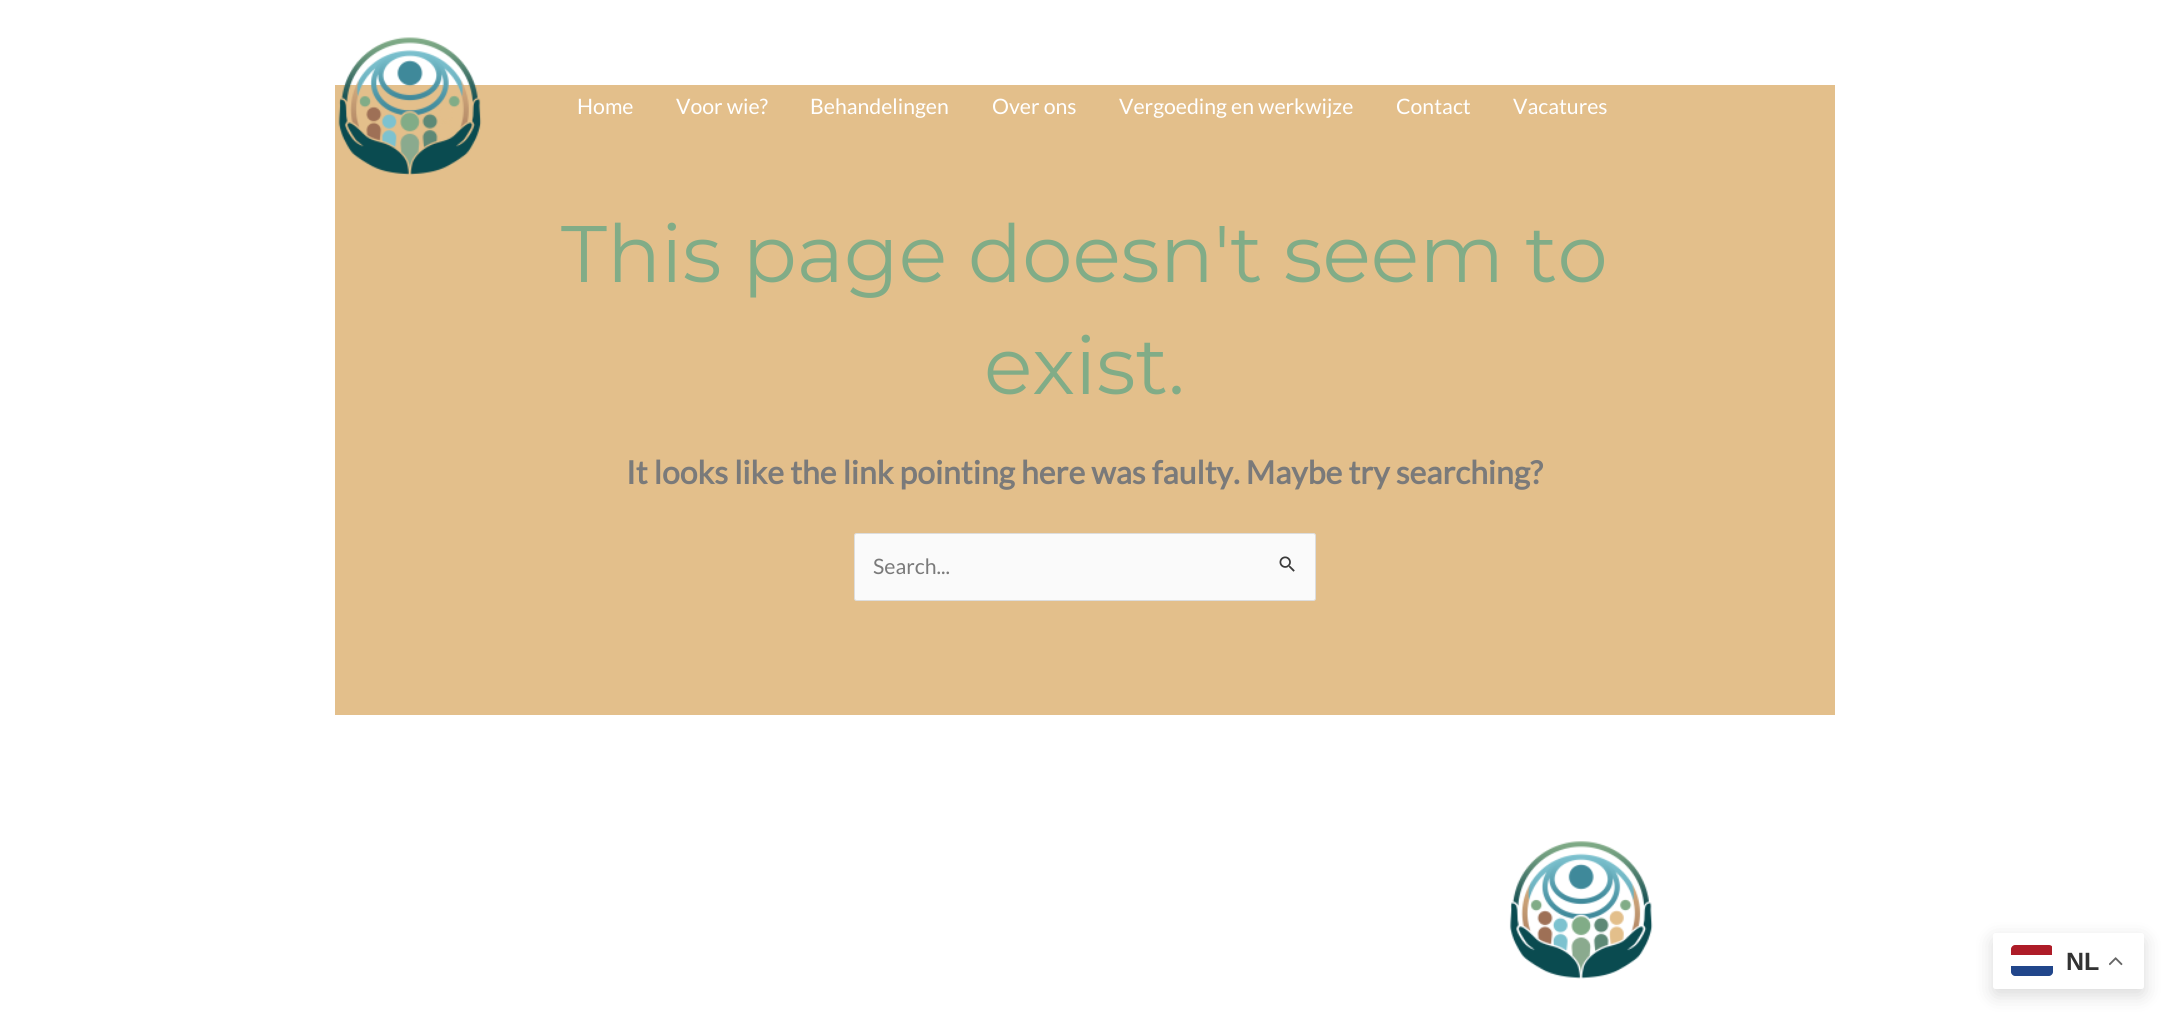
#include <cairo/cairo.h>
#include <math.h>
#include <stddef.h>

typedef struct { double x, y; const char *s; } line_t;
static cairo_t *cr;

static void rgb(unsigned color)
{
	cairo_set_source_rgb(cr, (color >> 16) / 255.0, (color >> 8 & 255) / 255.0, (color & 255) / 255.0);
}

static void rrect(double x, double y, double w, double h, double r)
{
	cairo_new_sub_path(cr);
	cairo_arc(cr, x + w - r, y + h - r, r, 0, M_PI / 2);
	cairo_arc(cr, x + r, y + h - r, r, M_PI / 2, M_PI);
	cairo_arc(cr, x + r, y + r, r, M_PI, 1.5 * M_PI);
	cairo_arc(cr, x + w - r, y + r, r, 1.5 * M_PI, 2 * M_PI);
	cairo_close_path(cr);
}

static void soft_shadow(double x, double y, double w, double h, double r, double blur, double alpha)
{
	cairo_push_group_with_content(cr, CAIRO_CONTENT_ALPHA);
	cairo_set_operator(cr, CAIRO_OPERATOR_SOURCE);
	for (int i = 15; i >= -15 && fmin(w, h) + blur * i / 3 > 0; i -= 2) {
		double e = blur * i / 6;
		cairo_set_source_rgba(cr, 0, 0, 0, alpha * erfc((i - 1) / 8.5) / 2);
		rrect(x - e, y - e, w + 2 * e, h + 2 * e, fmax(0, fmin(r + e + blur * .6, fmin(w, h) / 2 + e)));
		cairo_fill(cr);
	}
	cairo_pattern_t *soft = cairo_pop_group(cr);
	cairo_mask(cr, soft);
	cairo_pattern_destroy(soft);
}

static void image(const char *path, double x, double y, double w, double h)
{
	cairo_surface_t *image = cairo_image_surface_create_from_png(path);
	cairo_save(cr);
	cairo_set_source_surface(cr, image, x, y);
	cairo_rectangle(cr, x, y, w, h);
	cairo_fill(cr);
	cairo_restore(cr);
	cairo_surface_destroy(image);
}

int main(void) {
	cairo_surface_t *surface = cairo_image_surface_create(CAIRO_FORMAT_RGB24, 2168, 1025);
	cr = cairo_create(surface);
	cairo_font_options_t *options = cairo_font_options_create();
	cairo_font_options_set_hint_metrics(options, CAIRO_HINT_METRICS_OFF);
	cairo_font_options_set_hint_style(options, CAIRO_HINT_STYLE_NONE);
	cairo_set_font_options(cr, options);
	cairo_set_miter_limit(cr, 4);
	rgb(0xffffff);
	cairo_paint(cr);
	rgb(0xe3bf8b);
	cairo_rectangle(cr, 335, 85, 1500, 630);
	cairo_fill(cr);
	image("img/1.png", 338, 37, 144, 138);
	rgb(0xfafafa);
	rrect(854.5, 533.5, 461, 67, 2);
	cairo_fill_preserve(cr);
	rgb(0xdddddd);
	cairo_set_line_width(cr, 1);
	cairo_stroke(cr);
	image("img/2.png", 1279, 556, 16, 16);
	image("img/3.png", 1509, 841, 144, 138);
	rgb(0x000000);
	soft_shadow(1993, 939, 151, 56, 2.5, 9.5, 0.15);
	rgb(0xffffff);
	rrect(1993, 933, 151, 56, 2.5);
	cairo_fill(cr);
	rgb(0x21468b);
	cairo_new_path(cr);
	cairo_move_to(cr, 2011, 966);
	cairo_line_to(cr, 2053, 966);
	cairo_line_to(cr, 2053, 972);
	cairo_curve_to(cr, 2053, 974, 2051, 976, 2049, 976);
	cairo_line_to(cr, 2015, 976);
	cairo_curve_to(cr, 2013, 976, 2011, 974, 2011, 972);
	cairo_close_path(cr);
	cairo_fill(cr);
	cairo_save(cr);
	rrect(2011, 945, 42, 31, 4);
	cairo_clip(cr);
	rgb(0xae1c28);
	cairo_new_path(cr);
	cairo_move_to(cr, 2015, 945);
	cairo_line_to(cr, 2052, 945);
	cairo_line_to(cr, 2052, 955);
	cairo_line_to(cr, 2011, 955);
	cairo_line_to(cr, 2011, 949);
	cairo_curve_to(cr, 2011, 947, 2013, 945, 2015, 945);
	cairo_close_path(cr);
	cairo_fill(cr);
	cairo_restore(cr);
	image("img/4.png", 2109, 957, 14, 9);
	cairo_select_font_face(cr, "Lato", CAIRO_FONT_SLANT_NORMAL, CAIRO_FONT_WEIGHT_NORMAL);
	cairo_set_font_size(cr, 21.25);
	rgb(0xffffff);
	{
		static const line_t items[] = {
			{577, 114, "Home"},
			{676, 114, "Voor wie?"},
			{810, 114, "Behandelingen"},
			{992, 114, "Over ons"},
			{1119, 114, "Vergoeding en werkwijze"},
			{1396, 114, "Contact"},
			{1513, 114, "Vacatures"},
		};
		for (size_t i = 0; i < sizeof items / sizeof *items; i++) {
			cairo_move_to(cr, items[i].x, items[i].y);
			cairo_show_text(cr, items[i].s);
		}
	}
	cairo_select_font_face(cr, "Montserrat", CAIRO_FONT_SLANT_NORMAL, CAIRO_FONT_WEIGHT_NORMAL);
	cairo_set_font_size(cr, 80);
	rgb(0x81ac87);
	cairo_move_to(cr, 561, 282);
	cairo_show_text(cr, "This page doesn't seem to");
	cairo_move_to(cr, 984, 394);
	cairo_show_text(cr, "exist.");
	cairo_select_font_face(cr, "Lato", CAIRO_FONT_SLANT_NORMAL, CAIRO_FONT_WEIGHT_BOLD);
	cairo_set_font_size(cr, 31.9);
	rgb(0x7a7a7a);
	cairo_move_to(cr, 626, 484);
	cairo_show_text(cr, "It looks like the link pointing here was faulty. Maybe try searching?");
	cairo_select_font_face(cr, "Lato", CAIRO_FONT_SLANT_NORMAL, CAIRO_FONT_WEIGHT_NORMAL);
	cairo_set_font_size(cr, 21.25);
	cairo_move_to(cr, 873, 574);
	cairo_show_text(cr, "Search...");
	cairo_select_font_face(cr, "Liberation Sans", CAIRO_FONT_SLANT_NORMAL, CAIRO_FONT_WEIGHT_BOLD);
	cairo_set_font_size(cr, 25);
	rgb(0x333333);
	cairo_move_to(cr, 2066, 970);
	cairo_show_text(cr, "NL");
	cairo_surface_write_to_png(surface, "page.png");
	cairo_font_options_destroy(options);
	cairo_destroy(cr);
	cairo_surface_destroy(surface);
	return 0;
}
